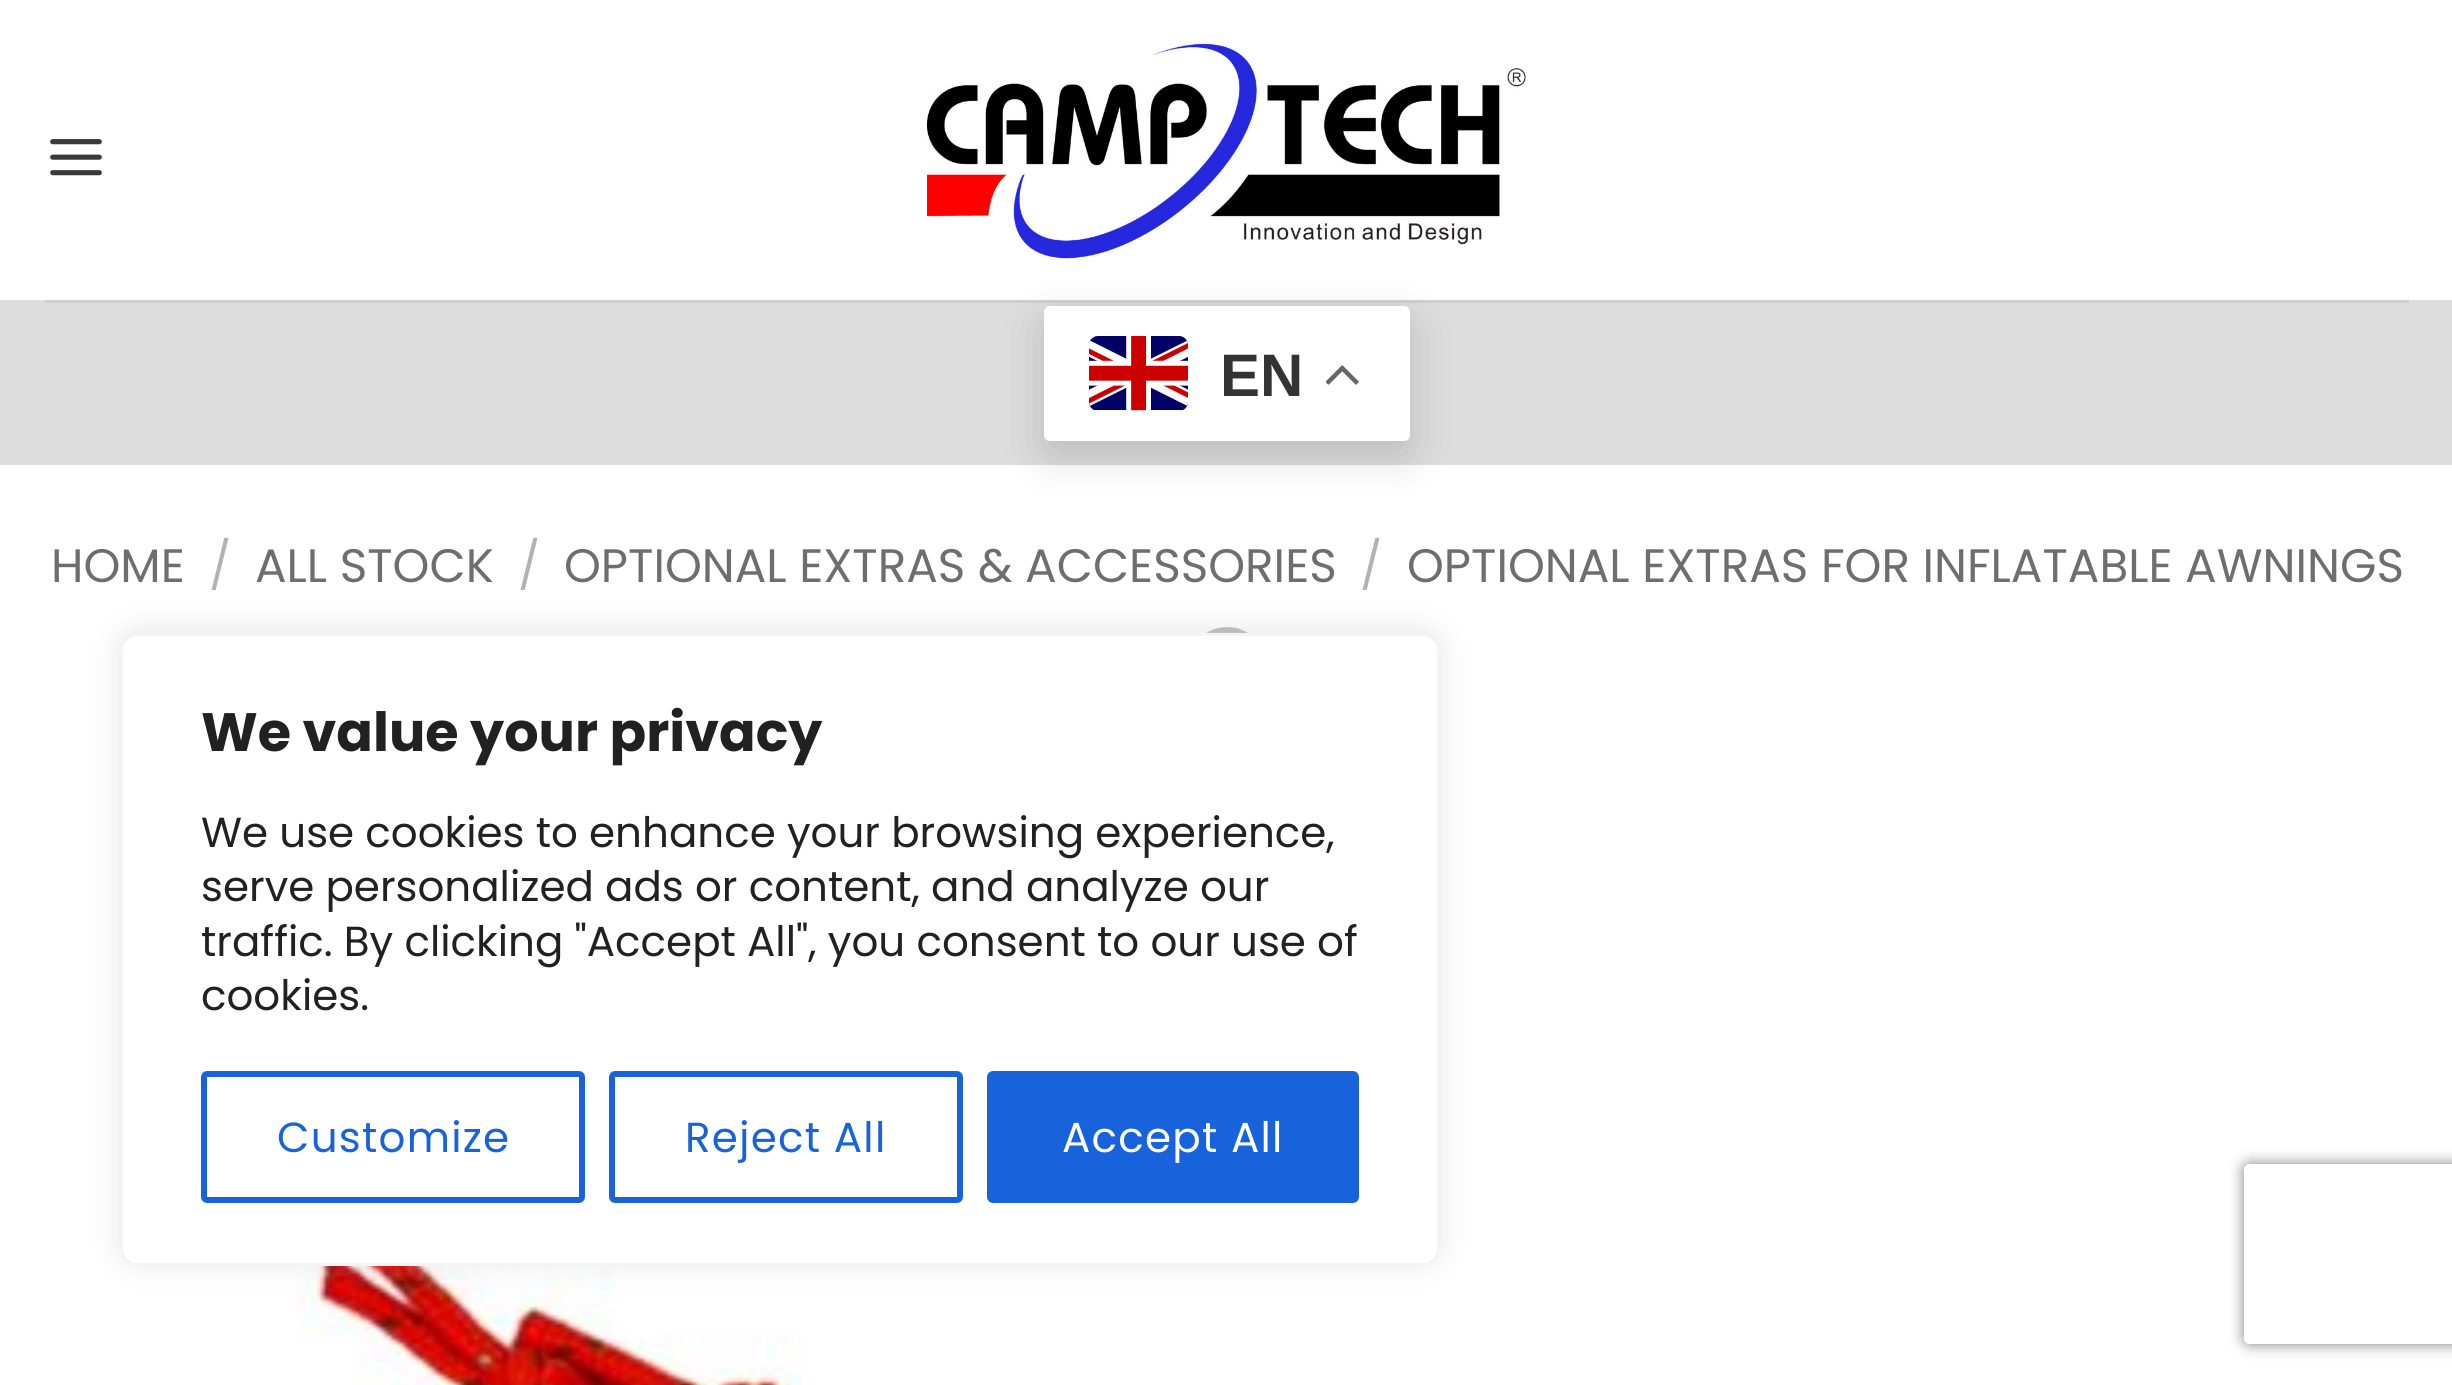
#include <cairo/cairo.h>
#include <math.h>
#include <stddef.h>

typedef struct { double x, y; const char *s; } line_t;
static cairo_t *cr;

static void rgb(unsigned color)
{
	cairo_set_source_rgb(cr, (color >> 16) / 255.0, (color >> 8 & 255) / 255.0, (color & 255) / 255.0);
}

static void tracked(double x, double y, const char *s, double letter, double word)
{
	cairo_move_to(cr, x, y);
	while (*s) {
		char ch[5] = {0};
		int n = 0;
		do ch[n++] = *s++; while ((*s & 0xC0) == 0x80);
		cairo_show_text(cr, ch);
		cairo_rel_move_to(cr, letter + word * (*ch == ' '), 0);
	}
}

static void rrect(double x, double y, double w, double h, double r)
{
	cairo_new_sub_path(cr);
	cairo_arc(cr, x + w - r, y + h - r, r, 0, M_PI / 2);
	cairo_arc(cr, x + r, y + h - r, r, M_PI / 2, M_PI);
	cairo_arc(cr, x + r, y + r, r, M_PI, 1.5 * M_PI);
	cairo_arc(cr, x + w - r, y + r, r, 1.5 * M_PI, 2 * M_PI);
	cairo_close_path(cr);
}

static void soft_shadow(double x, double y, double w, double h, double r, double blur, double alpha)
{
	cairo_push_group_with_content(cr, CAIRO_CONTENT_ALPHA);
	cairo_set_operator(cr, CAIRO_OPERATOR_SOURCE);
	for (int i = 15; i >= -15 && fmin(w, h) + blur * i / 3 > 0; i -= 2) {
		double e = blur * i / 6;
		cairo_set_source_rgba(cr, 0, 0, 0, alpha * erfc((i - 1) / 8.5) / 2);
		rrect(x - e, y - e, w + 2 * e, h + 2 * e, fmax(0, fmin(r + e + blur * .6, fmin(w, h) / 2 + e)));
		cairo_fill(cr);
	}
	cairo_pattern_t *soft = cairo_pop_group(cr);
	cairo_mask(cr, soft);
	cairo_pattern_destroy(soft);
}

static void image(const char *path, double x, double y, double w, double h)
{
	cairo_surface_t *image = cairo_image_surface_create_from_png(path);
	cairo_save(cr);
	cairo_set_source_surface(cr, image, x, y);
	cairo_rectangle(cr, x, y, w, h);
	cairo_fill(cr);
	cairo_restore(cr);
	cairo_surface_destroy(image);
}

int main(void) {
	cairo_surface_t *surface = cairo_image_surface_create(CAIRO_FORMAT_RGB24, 2452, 1385);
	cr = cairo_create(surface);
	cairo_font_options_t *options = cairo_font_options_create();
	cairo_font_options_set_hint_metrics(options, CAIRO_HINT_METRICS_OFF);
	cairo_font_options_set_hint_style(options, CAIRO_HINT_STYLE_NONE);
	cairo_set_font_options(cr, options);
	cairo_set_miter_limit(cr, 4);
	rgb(0xffffff);
	cairo_paint(cr);
	image("img/1.png", 50, 139, 52, 37);
	rgb(0xdddddd);
	cairo_rectangle(cr, 0, 300, 2452, 165);
	cairo_fill(cr);
	rgb(0x000000);
	soft_shadow(1044, 321, 366, 135, 6, 22.5, 0.15);
	image("img/2.png", 927, 43, 600, 216);
	cairo_set_source_rgba(cr, 0.318, 0.318, 0.318, 0.1);
	cairo_rectangle(cr, 45, 300, 2364, 3);
	cairo_fill(cr);
	rgb(0xffffff);
	rrect(1044, 306, 366, 135, 6);
	cairo_fill(cr);
	image("img/3.png", 1089, 336, 99, 75);
	image("img/4.png", 1326, 365, 33, 20);
	rrect(1191, 630, 72, 75, 36);
	rgb(0xc0c0c0);
	cairo_set_line_width(cr, 6);
	cairo_stroke(cr);
	image("img/5.png", 295, 1266, 508, 119);
	rgb(0xacabab);
	soft_shadow(120, 630, 1320, 633, 18, 15, 0.3);
	rgb(0xffffff);
	rrect(121.5, 634.5, 1317, 630, 16.5);
	cairo_fill_preserve(cr);
	rgb(0xf4f4f4);
	cairo_set_line_width(cr, 3);
	cairo_stroke(cr);
	rrect(204, 1074, 378, 126, 3);
	rgb(0x1863dc);
	cairo_set_line_width(cr, 6);
	cairo_stroke(cr);
	rrect(612, 1074, 348, 126, 3);
	cairo_stroke(cr);
	rrect(990, 1074, 366, 126, 3);
	cairo_fill_preserve(cr);
	cairo_stroke(cr);
	cairo_save(cr);
	cairo_set_fill_rule(cr, CAIRO_FILL_RULE_EVEN_ODD);
	cairo_new_path(cr);
	cairo_move_to(cr, 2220, 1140);
	cairo_line_to(cr, 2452, 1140);
	cairo_line_to(cr, 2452, 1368);
	cairo_line_to(cr, 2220, 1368);
	cairo_close_path(cr);
	cairo_move_to(cr, 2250, 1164);
	cairo_line_to(cr, 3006, 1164);
	cairo_curve_to(cr, 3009.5, 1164, 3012, 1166.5, 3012, 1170);
	cairo_line_to(cr, 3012, 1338);
	cairo_curve_to(cr, 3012, 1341.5, 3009.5, 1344, 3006, 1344);
	cairo_line_to(cr, 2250, 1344);
	cairo_curve_to(cr, 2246.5, 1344, 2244, 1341.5, 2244, 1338);
	cairo_line_to(cr, 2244, 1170);
	cairo_curve_to(cr, 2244, 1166.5, 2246.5, 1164, 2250, 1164);
	cairo_close_path(cr);
	cairo_clip(cr);
	rgb(0x808080);
	soft_shadow(2244, 1164, 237, 180, 6, 7.5, 1);
	cairo_restore(cr);
	cairo_select_font_face(cr, "Liberation Sans", CAIRO_FONT_SLANT_NORMAL, CAIRO_FONT_WEIGHT_BOLD);
	cairo_set_font_size(cr, 60);
	rgb(0x333333);
	cairo_move_to(cr, 1220, 396);
	cairo_show_text(cr, "EN");
	cairo_select_font_face(cr, "Poppins", CAIRO_FONT_SLANT_NORMAL, CAIRO_FONT_WEIGHT_NORMAL);
	cairo_set_font_size(cr, 46.9);
	rgb(0x6e6e6e);
	cairo_move_to(cr, 51, 582);
	cairo_show_text(cr, "HOME");
	rgb(0xb2b2b2);
	cairo_move_to(cr, 209, 582);
	cairo_show_text(cr, "/");
	rgb(0x6e6e6e);
	cairo_move_to(cr, 255, 582);
	cairo_show_text(cr, "ALL STOCK");
	rgb(0xb2b2b2);
	cairo_move_to(cr, 518, 582);
	cairo_show_text(cr, "/");
	rgb(0x6e6e6e);
	cairo_move_to(cr, 564, 582);
	cairo_show_text(cr, "OPTIONAL EXTRAS & ACCESSORIES");
	rgb(0xb2b2b2);
	cairo_move_to(cr, 1360, 582);
	cairo_show_text(cr, "/");
	rgb(0x6e6e6e);
	cairo_move_to(cr, 1407, 582);
	cairo_show_text(cr, "OPTIONAL EXTRAS FOR INFLATABLE AWNINGS");
	cairo_select_font_face(cr, "Poppins", CAIRO_FONT_SLANT_NORMAL, CAIRO_FONT_WEIGHT_BOLD);
	cairo_set_font_size(cr, 54);
	rgb(0x212121);
	cairo_move_to(cr, 201, 751);
	cairo_show_text(cr, "We value your privacy");
	cairo_select_font_face(cr, "Poppins", CAIRO_FONT_SLANT_NORMAL, CAIRO_FONT_WEIGHT_NORMAL);
	cairo_set_font_size(cr, 42);
	{
		static const line_t items[] = {
			{201, 847, "We use cookies to enhance your browsing experience,"},
			{201, 901, "serve personalized ads or content, and analyze our"},
			{201, 956, "traffic. By clicking \"Accept All\", you consent to our use of"},
			{201, 1010, "cookies."},
		};
		for (size_t i = 0; i < sizeof items / sizeof *items; i++) {
			cairo_move_to(cr, items[i].x, items[i].y);
			cairo_show_text(cr, items[i].s);
		}
	}
	rgb(0x1863dc);
	tracked(277, 1152, "Customize", 1.25, 0);
	tracked(685, 1152, "Reject All", 1.25, 0);
	rgb(0xffffff);
	tracked(1062, 1152, "Accept All", 1.25, 0);
	cairo_surface_write_to_png(surface, "page.png");
	cairo_font_options_destroy(options);
	cairo_destroy(cr);
	cairo_surface_destroy(surface);
	return 0;
}
